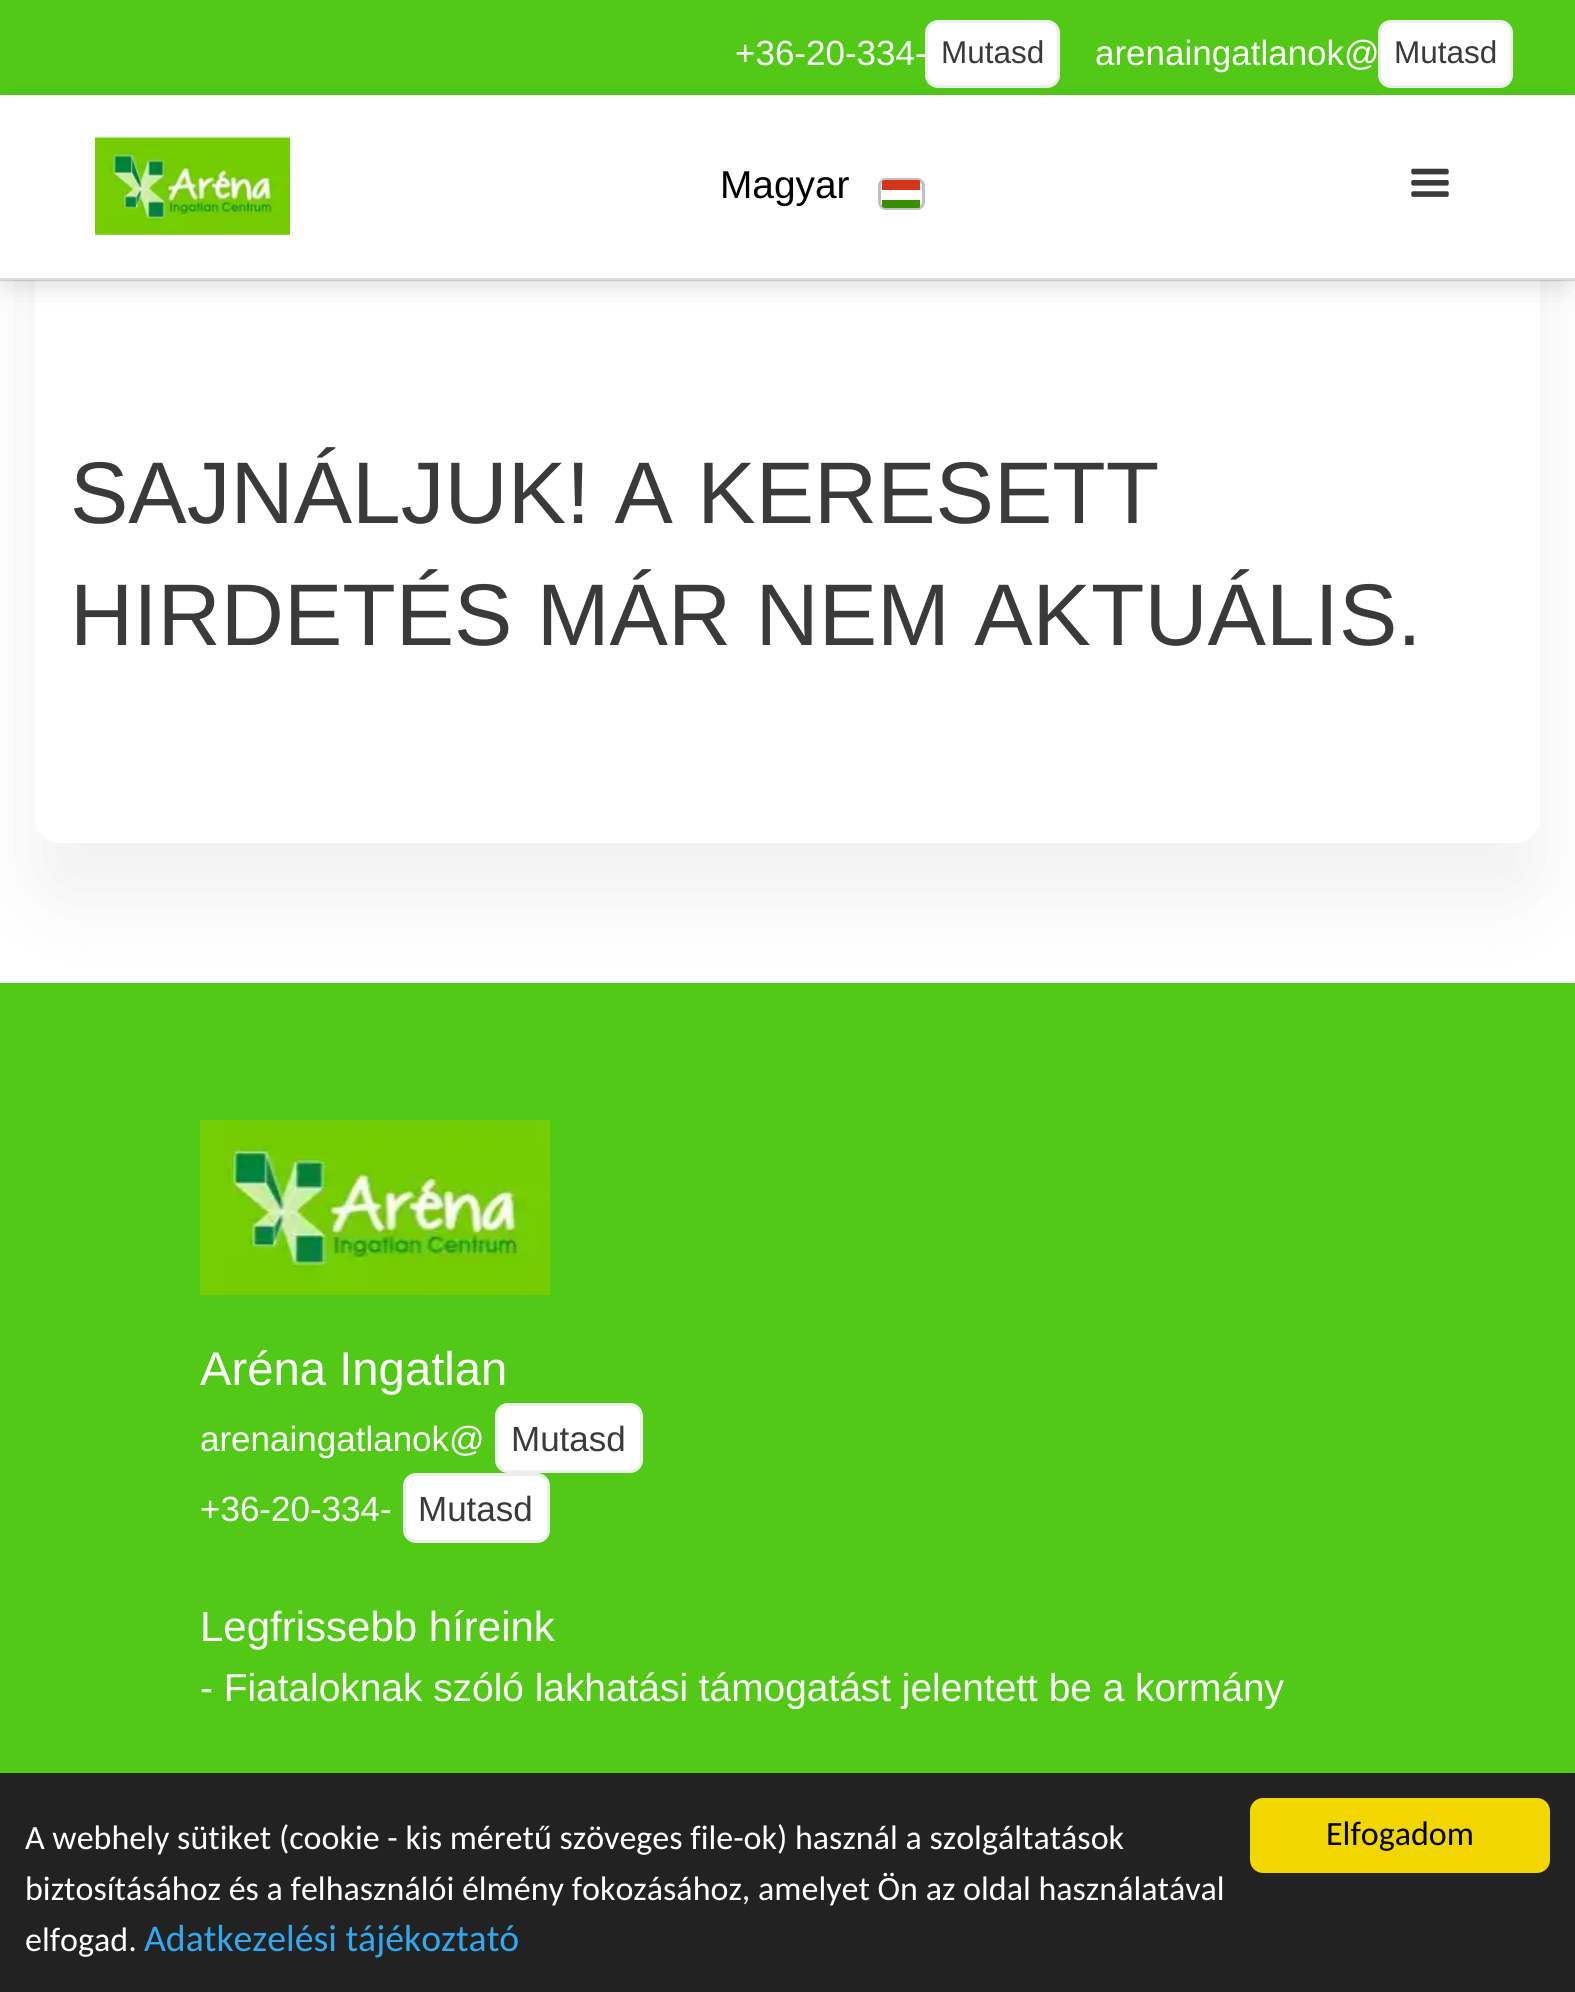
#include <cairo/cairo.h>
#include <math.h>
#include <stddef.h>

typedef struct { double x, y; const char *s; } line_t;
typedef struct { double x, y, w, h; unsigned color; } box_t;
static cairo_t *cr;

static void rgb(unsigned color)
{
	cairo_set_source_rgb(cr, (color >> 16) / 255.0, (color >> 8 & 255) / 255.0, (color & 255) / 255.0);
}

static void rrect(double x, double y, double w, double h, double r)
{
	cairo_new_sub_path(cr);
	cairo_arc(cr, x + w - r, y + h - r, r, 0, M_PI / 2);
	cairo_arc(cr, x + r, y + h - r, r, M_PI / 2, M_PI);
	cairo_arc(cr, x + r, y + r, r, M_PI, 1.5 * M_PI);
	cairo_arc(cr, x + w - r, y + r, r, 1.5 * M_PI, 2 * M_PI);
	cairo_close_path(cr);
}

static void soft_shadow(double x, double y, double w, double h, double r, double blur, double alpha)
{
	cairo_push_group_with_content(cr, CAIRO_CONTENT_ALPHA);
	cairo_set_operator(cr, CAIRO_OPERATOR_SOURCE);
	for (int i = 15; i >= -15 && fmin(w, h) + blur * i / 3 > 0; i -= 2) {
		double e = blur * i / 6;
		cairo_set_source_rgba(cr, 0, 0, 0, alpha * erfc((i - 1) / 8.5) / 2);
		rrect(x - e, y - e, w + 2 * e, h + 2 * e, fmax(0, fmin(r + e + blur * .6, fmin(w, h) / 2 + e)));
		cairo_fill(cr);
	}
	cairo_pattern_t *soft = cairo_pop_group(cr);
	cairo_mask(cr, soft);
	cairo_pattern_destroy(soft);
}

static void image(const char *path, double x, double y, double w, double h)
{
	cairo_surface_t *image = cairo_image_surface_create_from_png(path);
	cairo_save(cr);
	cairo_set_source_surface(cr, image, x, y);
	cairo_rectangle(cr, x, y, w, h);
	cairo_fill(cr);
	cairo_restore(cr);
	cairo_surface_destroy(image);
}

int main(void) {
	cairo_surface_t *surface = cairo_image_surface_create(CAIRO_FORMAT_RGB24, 1575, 1992);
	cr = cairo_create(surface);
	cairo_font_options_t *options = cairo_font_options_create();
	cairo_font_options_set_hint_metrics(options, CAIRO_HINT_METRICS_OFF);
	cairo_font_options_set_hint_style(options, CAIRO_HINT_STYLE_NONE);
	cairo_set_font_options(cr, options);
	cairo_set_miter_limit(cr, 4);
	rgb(0xffffff);
	cairo_paint(cr);
	rgb(0x51c916);
	cairo_rectangle(cr, 0, 983, 1575, 790);
	cairo_fill(cr);
	rgb(0x000000);
	soft_shadow(35, 128, 1505, 772, 25, 42.5, 0.06);
	rgb(0xffffff);
	rrect(35, 70, 1505, 773, 25);
	cairo_fill(cr);
	rgb(0x51c916);
	cairo_rectangle(cr, 0, 0, 1575, 95);
	cairo_fill(cr);
	rgb(0xffffff);
	rrect(925, 20, 135, 68, 13);
	cairo_fill(cr);
	rrect(926.5, 21.5, 132, 65, 11.5);
	cairo_set_source_rgba(cr, 0.318, 0.318, 0.318, 0.1);
	cairo_set_line_width(cr, 3);
	cairo_stroke(cr);
	rgb(0xffffff);
	rrect(1378, 20, 135, 68, 13);
	cairo_fill(cr);
	rrect(1379.5, 21.5, 132, 65, 11.5);
	cairo_set_source_rgba(cr, 0.318, 0.318, 0.318, 0.1);
	cairo_stroke(cr);
	rgb(0x000000);
	soft_shadow(10, 115, 1555, 165, 0, 15, 0.2);
	rgb(0xffffff);
	cairo_rectangle(cr, 0, 95, 1575, 185);
	cairo_fill(cr);
	cairo_set_source_rgba(cr, 0.318, 0.318, 0.318, 0.2);
	cairo_rectangle(cr, 0, 278, 1575, 3);
	cairo_fill(cr);
	image("img/1.png", 95, 137, 195, 98);
	rrect(879.5, 179.5, 44, 29, 6.5);
	rgb(0xc0c0c0);
	cairo_stroke(cr);
	cairo_save(cr);
	rrect(880, 180, 43, 28, 5);
	cairo_clip(cr);
	{
		static const box_t items[] = {
			{882, 180, 38, 28, 0xffffff},
			{882, 200, 38, 8, 0x388d00},
			{882, 180, 38, 10, 0xd43516},
		};
		for (size_t i = 0; i < sizeof items / sizeof *items; i++) {
			rgb(items[i].color);
			cairo_rectangle(cr, items[i].x, items[i].y, items[i].w, items[i].h);
			cairo_fill(cr);
		}
	}
	cairo_restore(cr);
	image("img/2.png", 1411, 168, 38, 29);
	image("img/3.png", 200, 1120, 350, 175);
	rgb(0xffffff);
	rrect(495, 1403, 148, 70, 13);
	cairo_fill(cr);
	rrect(496.5, 1404.5, 145, 67, 11.5);
	cairo_set_source_rgba(cr, 0.318, 0.318, 0.318, 0.1);
	cairo_stroke(cr);
	rgb(0xffffff);
	rrect(403, 1473, 147, 70, 13);
	cairo_fill(cr);
	rrect(404.5, 1474.5, 144, 67, 11.5);
	cairo_set_source_rgba(cr, 0.318, 0.318, 0.318, 0.1);
	cairo_stroke(cr);
	rgb(0x222222);
	cairo_rectangle(cr, 0, 1773, 1575, 219);
	cairo_fill(cr);
	rgb(0xf1d600);
	rrect(1250, 1798, 300, 75, 13);
	cairo_fill(cr);
	cairo_select_font_face(cr, "Liberation Sans", CAIRO_FONT_SLANT_NORMAL, CAIRO_FONT_WEIGHT_NORMAL);
	cairo_set_font_size(cr, 35);
	rgb(0xffffff);
	cairo_move_to(cr, 735, 65);
	cairo_show_text(cr, "+36-20-334-");
	cairo_set_font_size(cr, 31.5);
	rgb(0x3a3a3a);
	cairo_move_to(cr, 941, 63);
	cairo_show_text(cr, "Mutasd");
	cairo_set_font_size(cr, 35);
	rgb(0xffffff);
	cairo_move_to(cr, 1095, 65);
	cairo_show_text(cr, "arenaingatlanok@");
	cairo_set_font_size(cr, 31.5);
	rgb(0x3a3a3a);
	cairo_move_to(cr, 1394, 63);
	cairo_show_text(cr, "Mutasd");
	cairo_set_font_size(cr, 38.85);
	rgb(0x000000);
	cairo_move_to(cr, 720, 198);
	cairo_show_text(cr, "Magyar");
	cairo_set_font_size(cr, 87.5);
	rgb(0x3a3a3a);
	cairo_move_to(cr, 70, 523);
	cairo_show_text(cr, "SAJNÁLJUK! A KERESETT");
	cairo_move_to(cr, 70, 645);
	cairo_show_text(cr, "HIRDETÉS MÁR NEM AKTUÁLIS.");
	cairo_set_font_size(cr, 47.25);
	rgb(0xffffff);
	cairo_move_to(cr, 200, 1385);
	cairo_show_text(cr, "Aréna Ingatlan");
	cairo_set_font_size(cr, 35);
	cairo_move_to(cr, 200, 1451);
	cairo_show_text(cr, "arenaingatlanok@");
	rgb(0x3a3a3a);
	cairo_move_to(cr, 511, 1451);
	cairo_show_text(cr, "Mutasd");
	rgb(0xffffff);
	cairo_move_to(cr, 200, 1521);
	cairo_show_text(cr, "+36-20-334-");
	rgb(0x3a3a3a);
	cairo_move_to(cr, 418, 1521);
	cairo_show_text(cr, "Mutasd");
	cairo_set_font_size(cr, 42);
	rgb(0xffffff);
	cairo_move_to(cr, 200, 1641);
	cairo_show_text(cr, "Legfrissebb híreink");
	cairo_set_font_size(cr, 38.85);
	cairo_move_to(cr, 200, 1701);
	cairo_show_text(cr, "- Fiataloknak szóló lakhatási támogatást jelentett be a kormány");
	cairo_select_font_face(cr, "Carlito", CAIRO_FONT_SLANT_NORMAL, CAIRO_FONT_WEIGHT_NORMAL);
	cairo_set_font_size(cr, 34);
	{
		static const line_t items[] = {
			{25, 1849, "A webhely sütiket (cookie - kis méretű szöveges file-ok) használ a szolgáltatások"},
			{25, 1900, "biztosításához és a felhasználói élmény fokozásához, amelyet Ön az oldal használatával"},
			{25, 1951, "elfogad."},
		};
		for (size_t i = 0; i < sizeof items / sizeof *items; i++) {
			cairo_move_to(cr, items[i].x, items[i].y);
			cairo_show_text(cr, items[i].s);
		}
	}
	cairo_set_font_size(cr, 37.75);
	rgb(0x31a8f0);
	cairo_move_to(cr, 144, 1951);
	cairo_show_text(cr, "Adatkezelési tájékoztató");
	cairo_set_font_size(cr, 34);
	rgb(0x000000);
	cairo_move_to(cr, 1326, 1845);
	cairo_show_text(cr, "Elfogadom");
	cairo_surface_write_to_png(surface, "page.png");
	cairo_font_options_destroy(options);
	cairo_destroy(cr);
	cairo_surface_destroy(surface);
	return 0;
}
